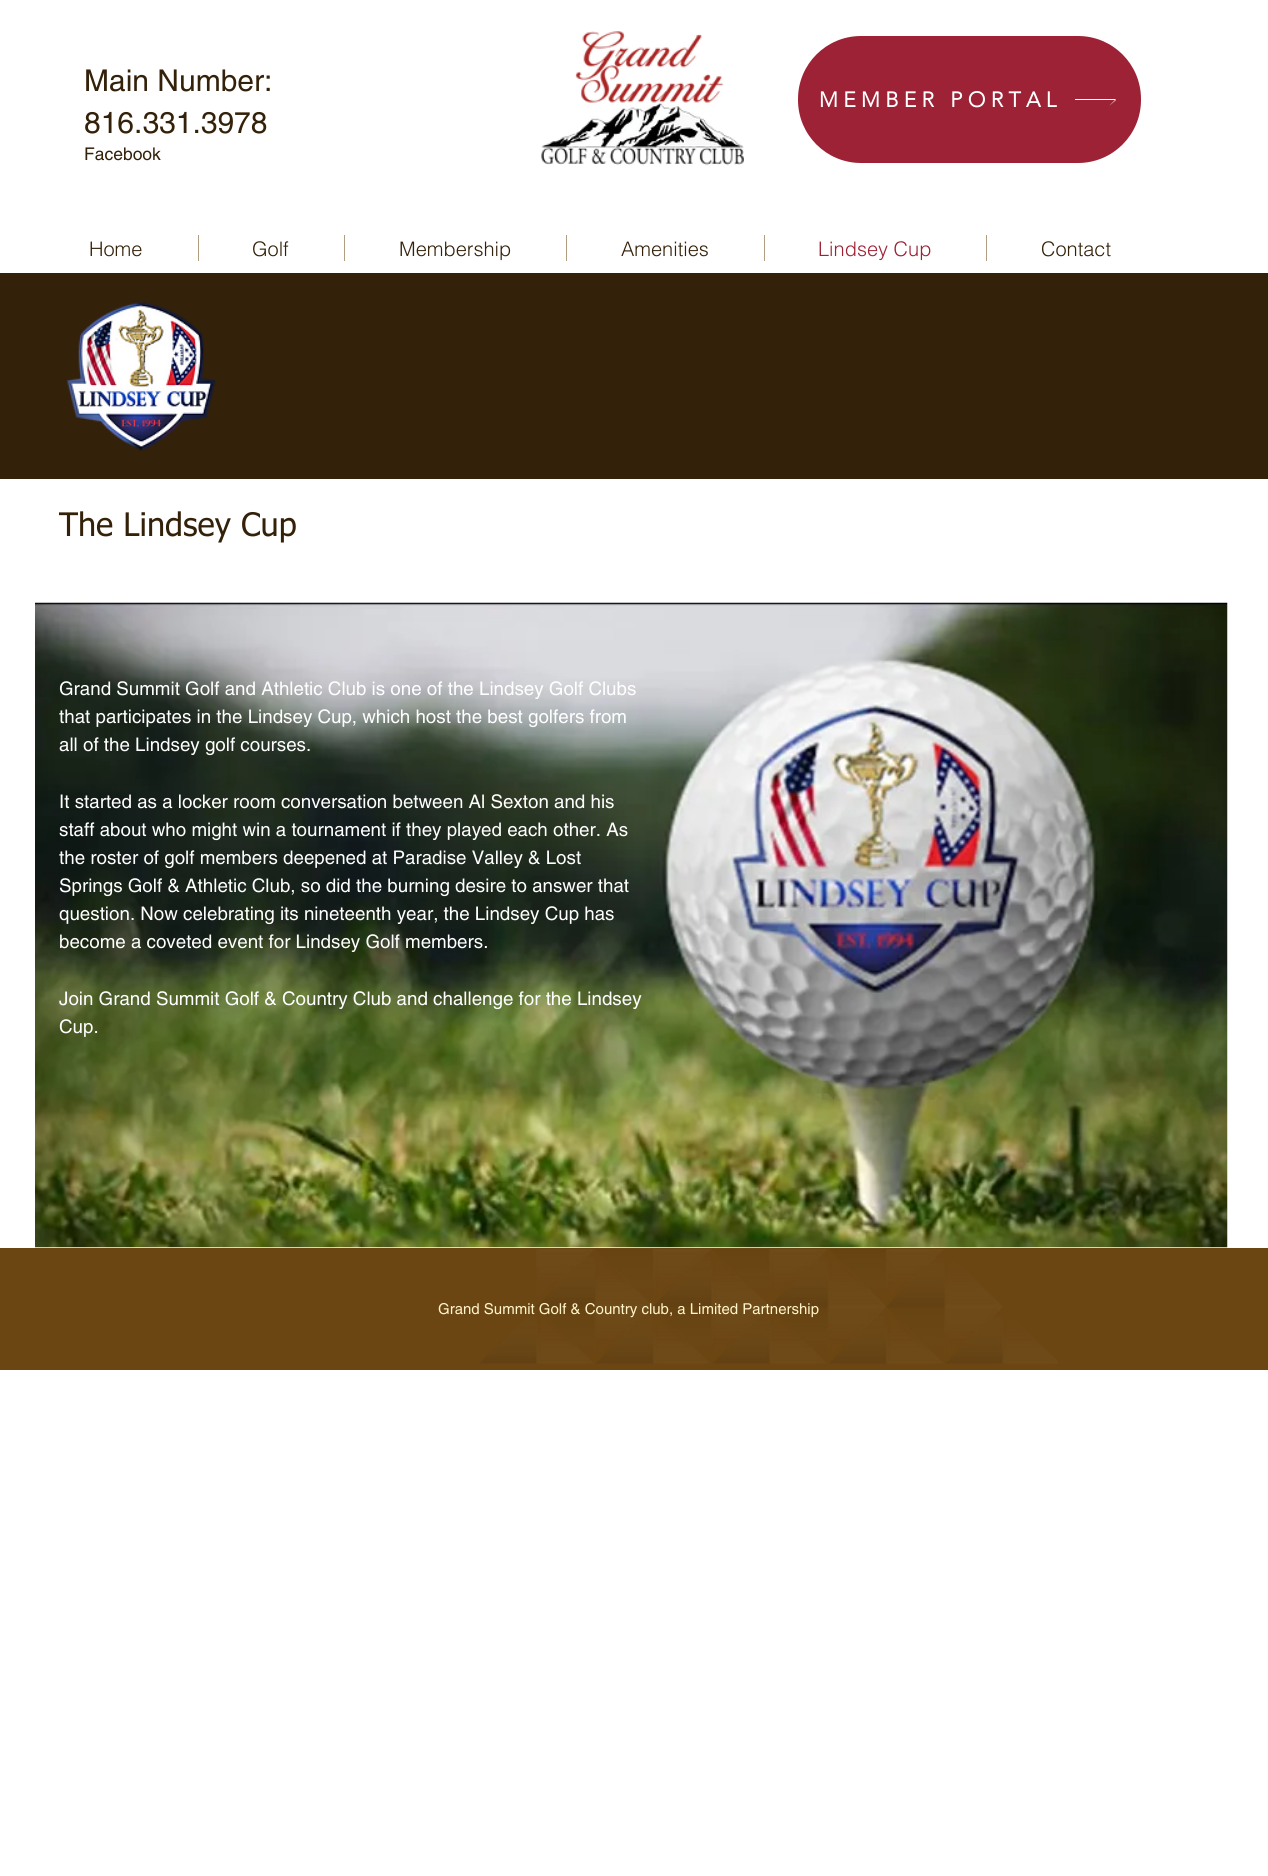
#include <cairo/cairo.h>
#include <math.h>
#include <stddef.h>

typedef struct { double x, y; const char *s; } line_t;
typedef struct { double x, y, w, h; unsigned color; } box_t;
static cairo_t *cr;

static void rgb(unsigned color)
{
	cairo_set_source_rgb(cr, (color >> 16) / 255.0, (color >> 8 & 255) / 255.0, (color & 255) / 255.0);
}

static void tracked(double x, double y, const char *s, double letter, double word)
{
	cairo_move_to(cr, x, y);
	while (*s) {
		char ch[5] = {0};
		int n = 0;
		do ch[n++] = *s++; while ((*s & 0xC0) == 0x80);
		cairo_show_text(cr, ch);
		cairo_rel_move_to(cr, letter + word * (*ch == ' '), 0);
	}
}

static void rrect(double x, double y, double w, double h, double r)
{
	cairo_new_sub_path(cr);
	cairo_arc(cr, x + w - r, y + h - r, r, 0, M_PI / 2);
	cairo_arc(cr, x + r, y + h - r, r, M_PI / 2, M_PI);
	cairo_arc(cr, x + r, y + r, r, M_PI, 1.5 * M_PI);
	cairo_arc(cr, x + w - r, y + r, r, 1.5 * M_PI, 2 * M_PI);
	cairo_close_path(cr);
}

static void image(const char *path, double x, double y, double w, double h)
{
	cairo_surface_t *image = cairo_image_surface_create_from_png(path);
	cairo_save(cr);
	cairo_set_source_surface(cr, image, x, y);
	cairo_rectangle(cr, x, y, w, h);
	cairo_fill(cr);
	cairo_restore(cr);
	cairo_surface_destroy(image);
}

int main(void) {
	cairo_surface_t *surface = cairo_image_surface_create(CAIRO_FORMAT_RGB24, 1268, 1876);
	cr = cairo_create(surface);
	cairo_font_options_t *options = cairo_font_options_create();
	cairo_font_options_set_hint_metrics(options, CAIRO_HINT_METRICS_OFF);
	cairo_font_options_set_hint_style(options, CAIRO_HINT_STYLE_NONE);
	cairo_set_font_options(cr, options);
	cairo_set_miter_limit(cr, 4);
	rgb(0xffffff);
	cairo_paint(cr);
	image("img/1.png", 541, 31, 203, 135);
	rgb(0x9d2235);
	rrect(798, 36, 343, 127, 63);
	cairo_fill(cr);
	rgb(0xffffff);
	cairo_new_path(cr);
	cairo_move_to(cr, 1109, 93);
	cairo_line_to(cr, 1115, 99);
	cairo_line_to(cr, 1075, 99);
	cairo_line_to(cr, 1075, 100);
	cairo_line_to(cr, 1115, 100);
	cairo_line_to(cr, 1109, 106);
	cairo_line_to(cr, 1116, 100);
	cairo_close_path(cr);
	cairo_fill(cr);
	{
		static const box_t items[] = {
			{198, 235, 1, 26, 0xb39e82},
			{344, 235, 1, 26, 0xb39e82},
			{566, 235, 1, 26, 0xb39e82},
			{764, 235, 1, 26, 0xb39e82},
			{986, 235, 1, 26, 0xb39e82},
			{0, 273, 1268, 206, 0x342109},
		};
		for (size_t i = 0; i < sizeof items / sizeof *items; i++) {
			rgb(items[i].color);
			cairo_rectangle(cr, items[i].x, items[i].y, items[i].w, items[i].h);
			cairo_fill(cr);
		}
	}
	image("img/2.png", 66, 301, 150, 150);
	image("img/3.png", 35, 602, 1193, 646);
	rgb(0x6b4613);
	cairo_rectangle(cr, 0, 1248, 1268, 122);
	cairo_fill(cr);
	image("img/4.png", 480, 1249, 578, 115);
	cairo_select_font_face(cr, "helvetica", CAIRO_FONT_SLANT_NORMAL, CAIRO_FONT_WEIGHT_NORMAL);
	cairo_set_font_size(cr, 30);
	rgb(0x342109);
	cairo_move_to(cr, 84, 91);
	cairo_show_text(cr, "Main Number:");
	cairo_move_to(cr, 84, 133);
	cairo_show_text(cr, "816.331.3978");
	cairo_select_font_face(cr, "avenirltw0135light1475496", CAIRO_FONT_SLANT_NORMAL, CAIRO_FONT_WEIGHT_BOLD);
	cairo_set_font_size(cr, 21.25);
	rgb(0xffffff);
	tracked(819, 107, "MEMBER PORTAL", 5.25, 0);
	cairo_select_font_face(cr, "helvetica", CAIRO_FONT_SLANT_NORMAL, CAIRO_FONT_WEIGHT_NORMAL);
	cairo_set_font_size(cr, 17.5);
	rgb(0x342109);
	cairo_move_to(cr, 84, 160);
	cairo_show_text(cr, "Facebook");
	cairo_select_font_face(cr, "helvetica Light", CAIRO_FONT_SLANT_NORMAL, CAIRO_FONT_WEIGHT_NORMAL);
	cairo_set_font_size(cr, 20);
	{
		static const line_t items[] = {
			{89, 256, "Home"},
			{252, 256, "Golf"},
			{399, 256, "Membership"},
			{621, 256, "Amenities"},
		};
		for (size_t i = 0; i < sizeof items / sizeof *items; i++) {
			cairo_move_to(cr, items[i].x, items[i].y);
			cairo_show_text(cr, items[i].s);
		}
	}
	rgb(0x9d2235);
	cairo_move_to(cr, 818, 256);
	cairo_show_text(cr, "Lindsey Cup");
	rgb(0x342109);
	cairo_move_to(cr, 1041, 256);
	cairo_show_text(cr, "Contact");
	cairo_select_font_face(cr, "tahoma", CAIRO_FONT_SLANT_NORMAL, CAIRO_FONT_WEIGHT_NORMAL);
	cairo_set_font_size(cr, 32.5);
	cairo_move_to(cr, 59, 536);
	cairo_show_text(cr, "The Lindsey Cup");
	cairo_select_font_face(cr, "helvetica", CAIRO_FONT_SLANT_NORMAL, CAIRO_FONT_WEIGHT_NORMAL);
	cairo_set_font_size(cr, 18.75);
	rgb(0xffffff);
	{
		static const line_t items[] = {
			{59, 695, "Grand Summit Golf and Athletic Club is one of the Lindsey Golf Clubs"},
			{59, 723, "that participates in the Lindsey Cup, which host the best golfers from"},
			{59, 751, "all of the Lindsey golf courses."},
			{59, 808, "It started as a locker room conversation between Al Sexton and his"},
			{59, 836, "staff about who might win a tournament if they played each other. As"},
			{59, 864, "the roster of golf members deepened at Paradise Valley & Lost"},
			{59, 892, "Springs Golf & Athletic Club, so did the burning desire to answer that"},
			{59, 920, "question. Now celebrating its nineteenth year, the Lindsey Cup has"},
			{59, 948, "become a coveted event for Lindsey Golf members."},
			{59, 1005, "Join Grand Summit Golf & Country Club and challenge for the Lindsey"},
			{59, 1033, "Cup."},
		};
		for (size_t i = 0; i < sizeof items / sizeof *items; i++) {
			cairo_move_to(cr, items[i].x, items[i].y);
			cairo_show_text(cr, items[i].s);
		}
	}
	cairo_set_font_size(cr, 15);
	rgb(0xfff4ca);
	cairo_move_to(cr, 438, 1314);
	cairo_show_text(cr, "Grand Summit Golf & Country club, a Limited Partnership");
	cairo_surface_write_to_png(surface, "page.png");
	cairo_font_options_destroy(options);
	cairo_destroy(cr);
	cairo_surface_destroy(surface);
	return 0;
}
